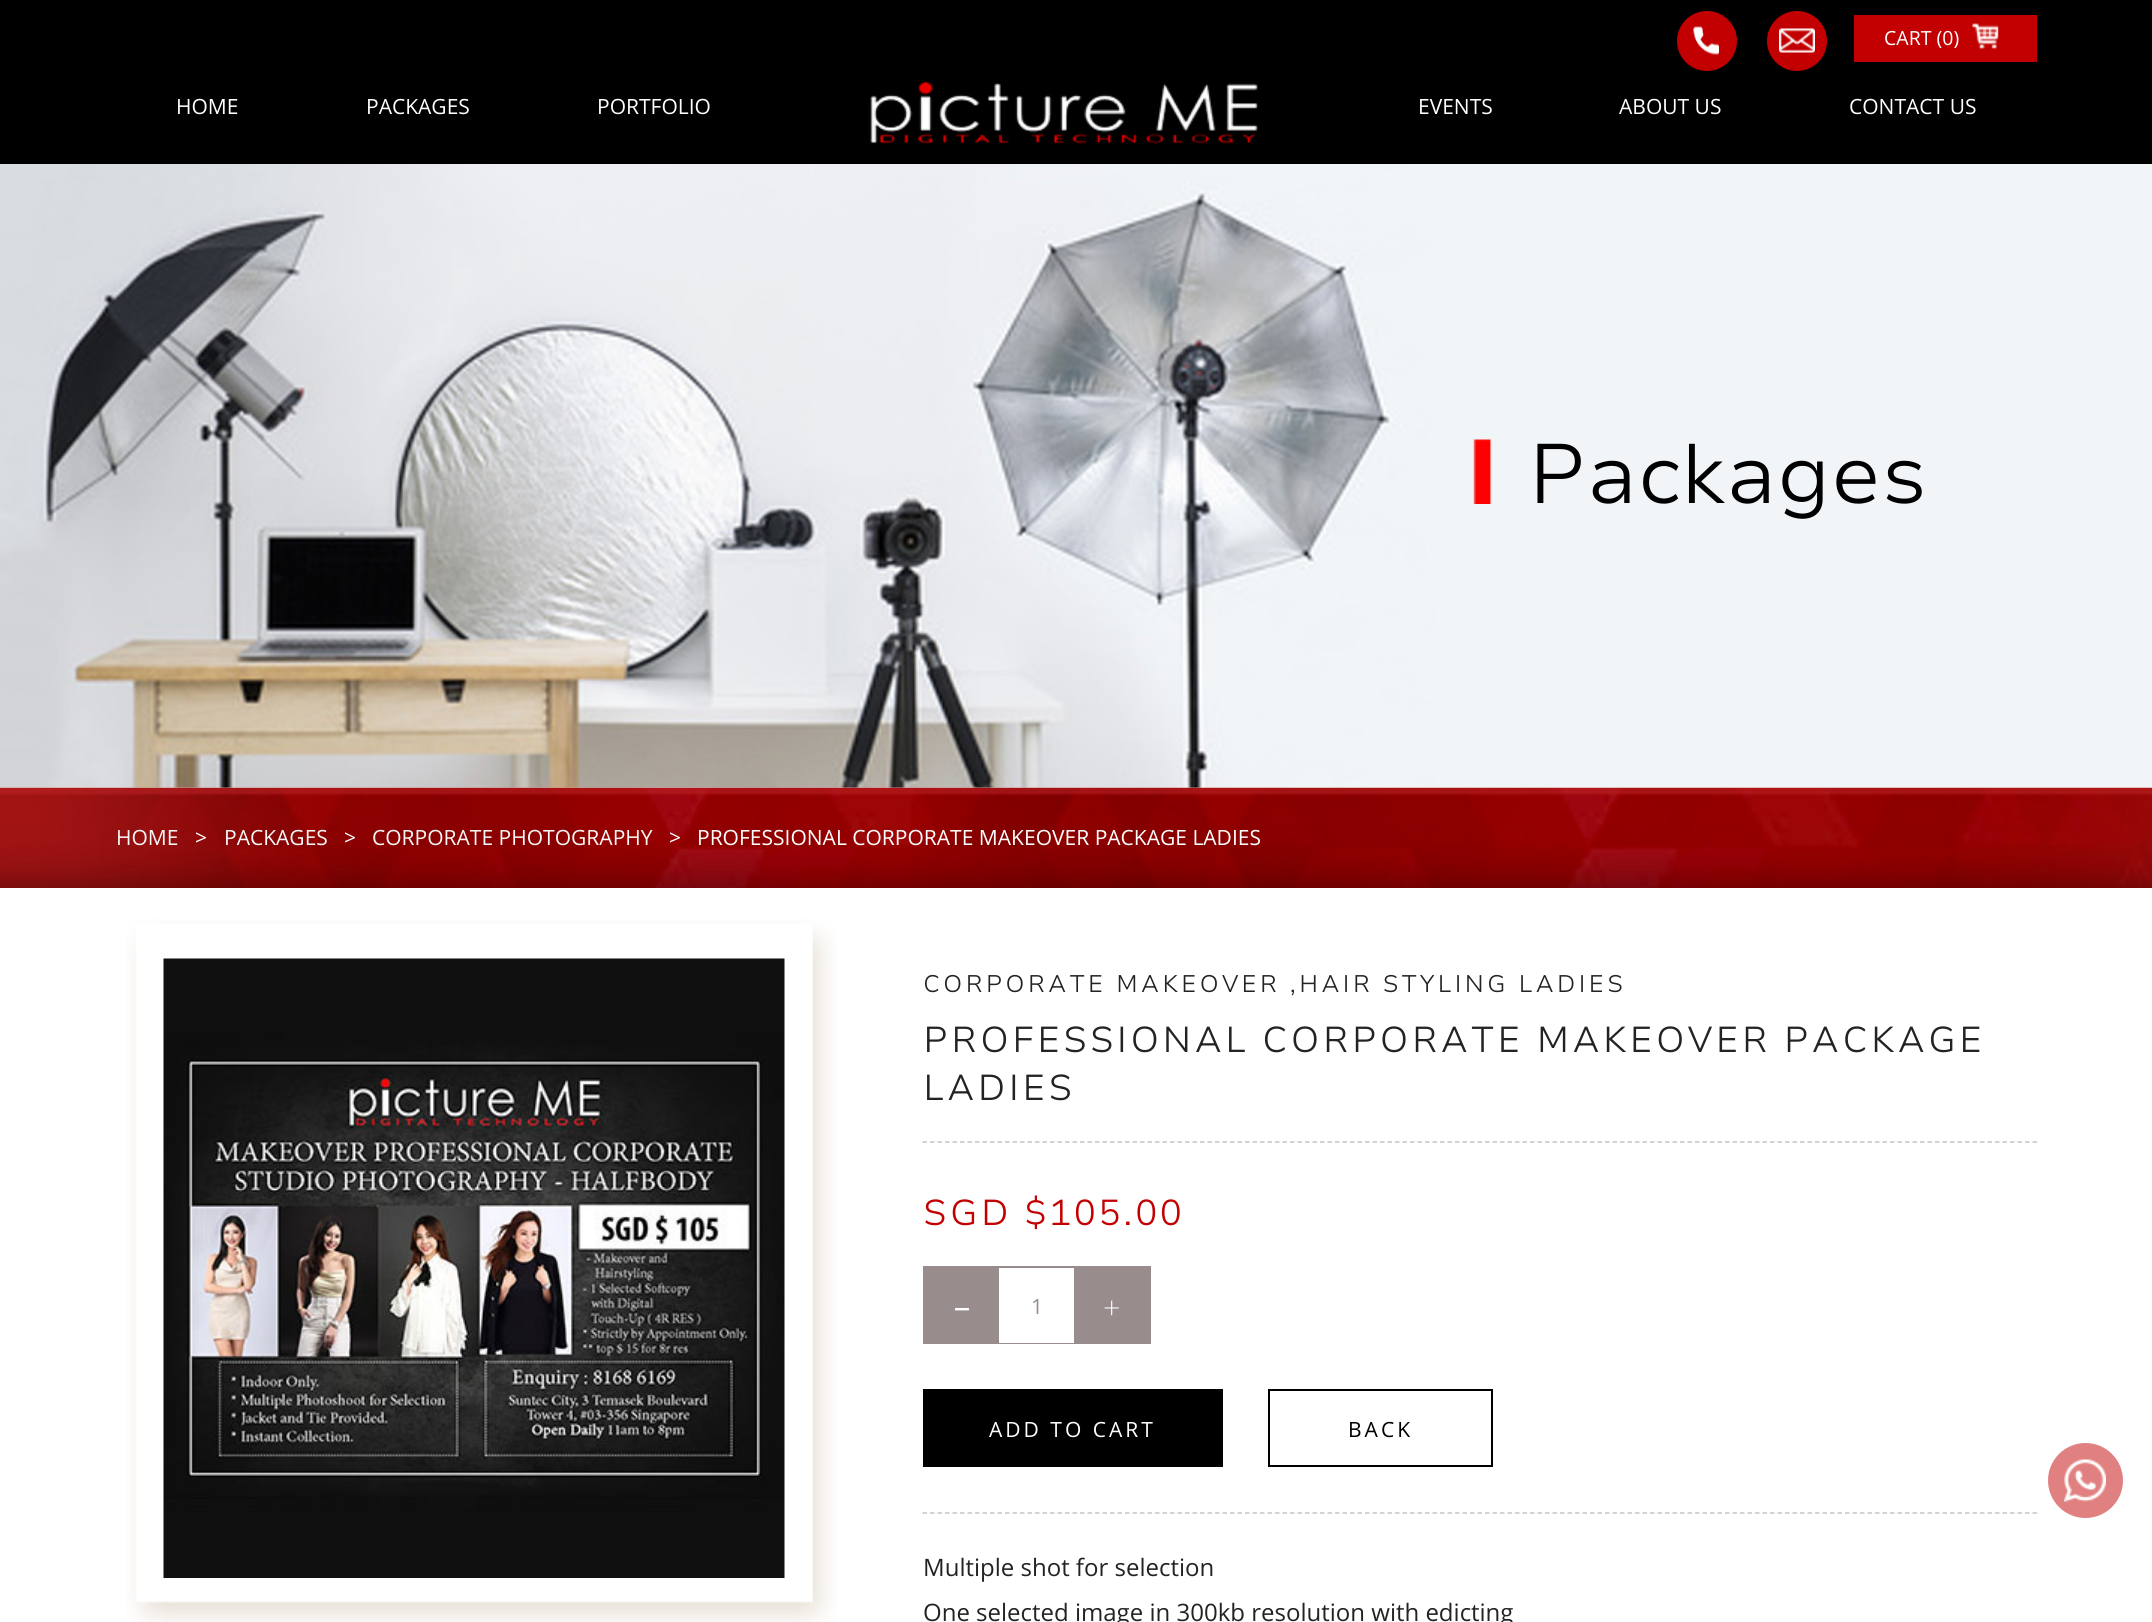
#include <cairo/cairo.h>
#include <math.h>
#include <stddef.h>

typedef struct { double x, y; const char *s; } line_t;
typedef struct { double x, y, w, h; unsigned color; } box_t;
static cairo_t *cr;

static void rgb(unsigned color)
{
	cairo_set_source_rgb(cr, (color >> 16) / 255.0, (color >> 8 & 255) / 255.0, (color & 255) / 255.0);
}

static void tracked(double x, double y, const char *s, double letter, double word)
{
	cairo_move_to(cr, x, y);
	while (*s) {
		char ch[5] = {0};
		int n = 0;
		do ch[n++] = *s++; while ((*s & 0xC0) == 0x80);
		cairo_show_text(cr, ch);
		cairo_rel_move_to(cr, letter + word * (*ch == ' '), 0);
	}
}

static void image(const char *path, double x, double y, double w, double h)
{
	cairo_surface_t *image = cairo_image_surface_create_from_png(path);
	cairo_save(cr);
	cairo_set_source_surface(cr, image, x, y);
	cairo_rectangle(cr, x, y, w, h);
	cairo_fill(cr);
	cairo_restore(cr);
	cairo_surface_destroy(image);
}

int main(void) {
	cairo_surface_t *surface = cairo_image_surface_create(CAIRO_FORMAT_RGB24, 2152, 1622);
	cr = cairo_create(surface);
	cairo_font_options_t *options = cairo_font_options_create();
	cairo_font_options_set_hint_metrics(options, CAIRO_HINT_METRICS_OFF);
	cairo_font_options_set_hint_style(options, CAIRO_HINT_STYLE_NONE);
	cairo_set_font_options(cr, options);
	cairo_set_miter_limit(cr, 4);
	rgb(0xffffff);
	cairo_paint(cr);
	rgb(0x000000);
	cairo_rectangle(cr, 0, 0, 2152, 164);
	cairo_fill(cr);
	rgb(0xc20001);
	cairo_arc(cr, 1707, 41, 30, 0, 2 * M_PI);
	cairo_fill(cr);
	image("img/1.png", 1693, 26, 26, 29);
	cairo_arc(cr, 1797, 41, 30, 0, 2 * M_PI);
	cairo_fill(cr);
	image("img/2.png", 1779, 28, 36, 25);
	cairo_rectangle(cr, 1854, 15, 183, 47);
	cairo_fill(cr);
	image("img/3.png", 1972, 23, 27, 26);
	image("img/4.png", 869, 81, 389, 63);
	image("img/7.png", 0, 787, 2152, 101);
	image("img/5.png", 0, 164, 2152, 624);
	image("img/6.png", 1473, 439, 19, 65);
	image("img/8.png", 126, 919, 711, 703);
	image("img/9.png", 163, 958, 622, 620);
	cairo_new_path(cr);
	cairo_move_to(cr, 922.5, 1142);
	cairo_line_to(cr, 2037, 1142);
	rgb(0xc9c3c3);
	cairo_set_line_width(cr, 1.5);
	cairo_set_dash(cr, (double[]){4.5, 3}, 2, 0);
	cairo_stroke(cr);
	cairo_new_path(cr);
	cairo_move_to(cr, 922.5, 1513);
	cairo_line_to(cr, 2037, 1513);
	cairo_stroke(cr);
	cairo_rectangle(cr, 924, 1267, 226, 76);
	rgb(0x988c8c);
	cairo_set_line_width(cr, 2);
	cairo_set_dash(cr, NULL, 0, 0);
	cairo_stroke(cr);
	{
		static const box_t items[] = {
			{925, 1268, 74, 74, 0x988c8c},
			{999, 1342, 75, 1, 0xffffff},
			{1074, 1268, 75, 74, 0x988c8c},
			{923, 1389, 300, 78, 0x000000},
		};
		for (size_t i = 0; i < sizeof items / sizeof *items; i++) {
			rgb(items[i].color);
			cairo_rectangle(cr, items[i].x, items[i].y, items[i].w, items[i].h);
			cairo_fill(cr);
		}
	}
	cairo_rectangle(cr, 1269, 1390, 223, 76);
	cairo_stroke(cr);
	rgb(0xe18080);
	cairo_arc(cr, 2085.5, 1480.5, 37.5, 0, 2 * M_PI);
	cairo_fill(cr);
	image("img/10.png", 2064, 1459, 42, 43);
	cairo_select_font_face(cr, "Open Sans", CAIRO_FONT_SLANT_NORMAL, CAIRO_FONT_WEIGHT_NORMAL);
	cairo_set_font_size(cr, 19.5);
	rgb(0xffffff);
	cairo_move_to(cr, 1884, 45);
	cairo_show_text(cr, "CART (0)");
	cairo_set_font_size(cr, 21);
	{
		static const line_t items[] = {
			{176, 114, "HOME"},
			{366, 114, "PACKAGES"},
			{597, 114, "PORTFOLIO"},
			{1418, 114, "EVENTS"},
			{1619, 114, "ABOUT US"},
			{1849, 114, "CONTACT US"},
		};
		for (size_t i = 0; i < sizeof items / sizeof *items; i++) {
			cairo_move_to(cr, items[i].x, items[i].y);
			cairo_show_text(cr, items[i].s);
		}
	}
	cairo_select_font_face(cr, "Nunito Sans Light", CAIRO_FONT_SLANT_NORMAL, CAIRO_FONT_WEIGHT_NORMAL);
	cairo_set_font_size(cr, 84);
	rgb(0x000000);
	cairo_move_to(cr, 1528, 503);
	cairo_show_text(cr, "Packages");
	cairo_select_font_face(cr, "Open Sans", CAIRO_FONT_SLANT_NORMAL, CAIRO_FONT_WEIGHT_NORMAL);
	cairo_set_font_size(cr, 21);
	rgb(0xf7f7f7);
	cairo_move_to(cr, 116, 845);
	cairo_show_text(cr, "HOME");
	rgb(0xffffff);
	cairo_move_to(cr, 195, 845);
	cairo_show_text(cr, ">");
	rgb(0xf7f7f7);
	cairo_move_to(cr, 224, 845);
	cairo_show_text(cr, "PACKAGES");
	rgb(0xffffff);
	cairo_move_to(cr, 344, 845);
	cairo_show_text(cr, ">");
	rgb(0xf7f7f7);
	cairo_move_to(cr, 372, 845);
	cairo_show_text(cr, "CORPORATE PHOTOGRAPHY");
	rgb(0xffffff);
	cairo_move_to(cr, 669, 845);
	cairo_show_text(cr, ">");
	cairo_move_to(cr, 697, 845);
	cairo_show_text(cr, "PROFESSIONAL CORPORATE MAKEOVER PACKAGE LADIES");
	cairo_select_font_face(cr, "Nunito Sans Light", CAIRO_FONT_SLANT_NORMAL, CAIRO_FONT_WEIGHT_NORMAL);
	cairo_set_font_size(cr, 24);
	rgb(0x232323);
	tracked(923, 992, "CORPORATE MAKEOVER ,HAIR STYLING LADIES", 3, 0);
	cairo_set_font_size(cr, 36);
	tracked(923, 1052, "PROFESSIONAL CORPORATE MAKEOVER PACKAGE", 3, 0);
	tracked(923, 1100, "LADIES", 3, 0);
	rgb(0xc20001);
	tracked(923, 1225, "SGD $105.00", 3, 0);
	cairo_select_font_face(cr, "Lato Light", CAIRO_FONT_SLANT_NORMAL, CAIRO_FONT_WEIGHT_NORMAL);
	cairo_set_font_size(cr, 60);
	rgb(0xffffff);
	cairo_move_to(cr, 952, 1327);
	cairo_show_text(cr, "-");
	cairo_select_font_face(cr, "Open Sans", CAIRO_FONT_SLANT_NORMAL, CAIRO_FONT_WEIGHT_NORMAL);
	cairo_set_font_size(cr, 21);
	rgb(0x988c8c);
	cairo_move_to(cr, 1031, 1314);
	cairo_show_text(cr, "1");
	cairo_select_font_face(cr, "Lato Light", CAIRO_FONT_SLANT_NORMAL, CAIRO_FONT_WEIGHT_NORMAL);
	cairo_set_font_size(cr, 30);
	rgb(0xffffff);
	cairo_move_to(cr, 1103, 1318);
	cairo_show_text(cr, "+");
	cairo_select_font_face(cr, "Open Sans", CAIRO_FONT_SLANT_NORMAL, CAIRO_FONT_WEIGHT_NORMAL);
	cairo_set_font_size(cr, 21);
	tracked(989, 1437, "ADD TO CART", 3, 0);
	rgb(0x000000);
	tracked(1348, 1437, "BACK", 3, 0);
	cairo_set_font_size(cr, 24);
	rgb(0x232323);
	cairo_move_to(cr, 923, 1576);
	cairo_show_text(cr, "Multiple shot for selection");
	cairo_move_to(cr, 923, 1621);
	cairo_show_text(cr, "One selected image in 300kb resolution with edicting");
	cairo_surface_write_to_png(surface, "page.png");
	cairo_font_options_destroy(options);
	cairo_destroy(cr);
	cairo_surface_destroy(surface);
	return 0;
}
